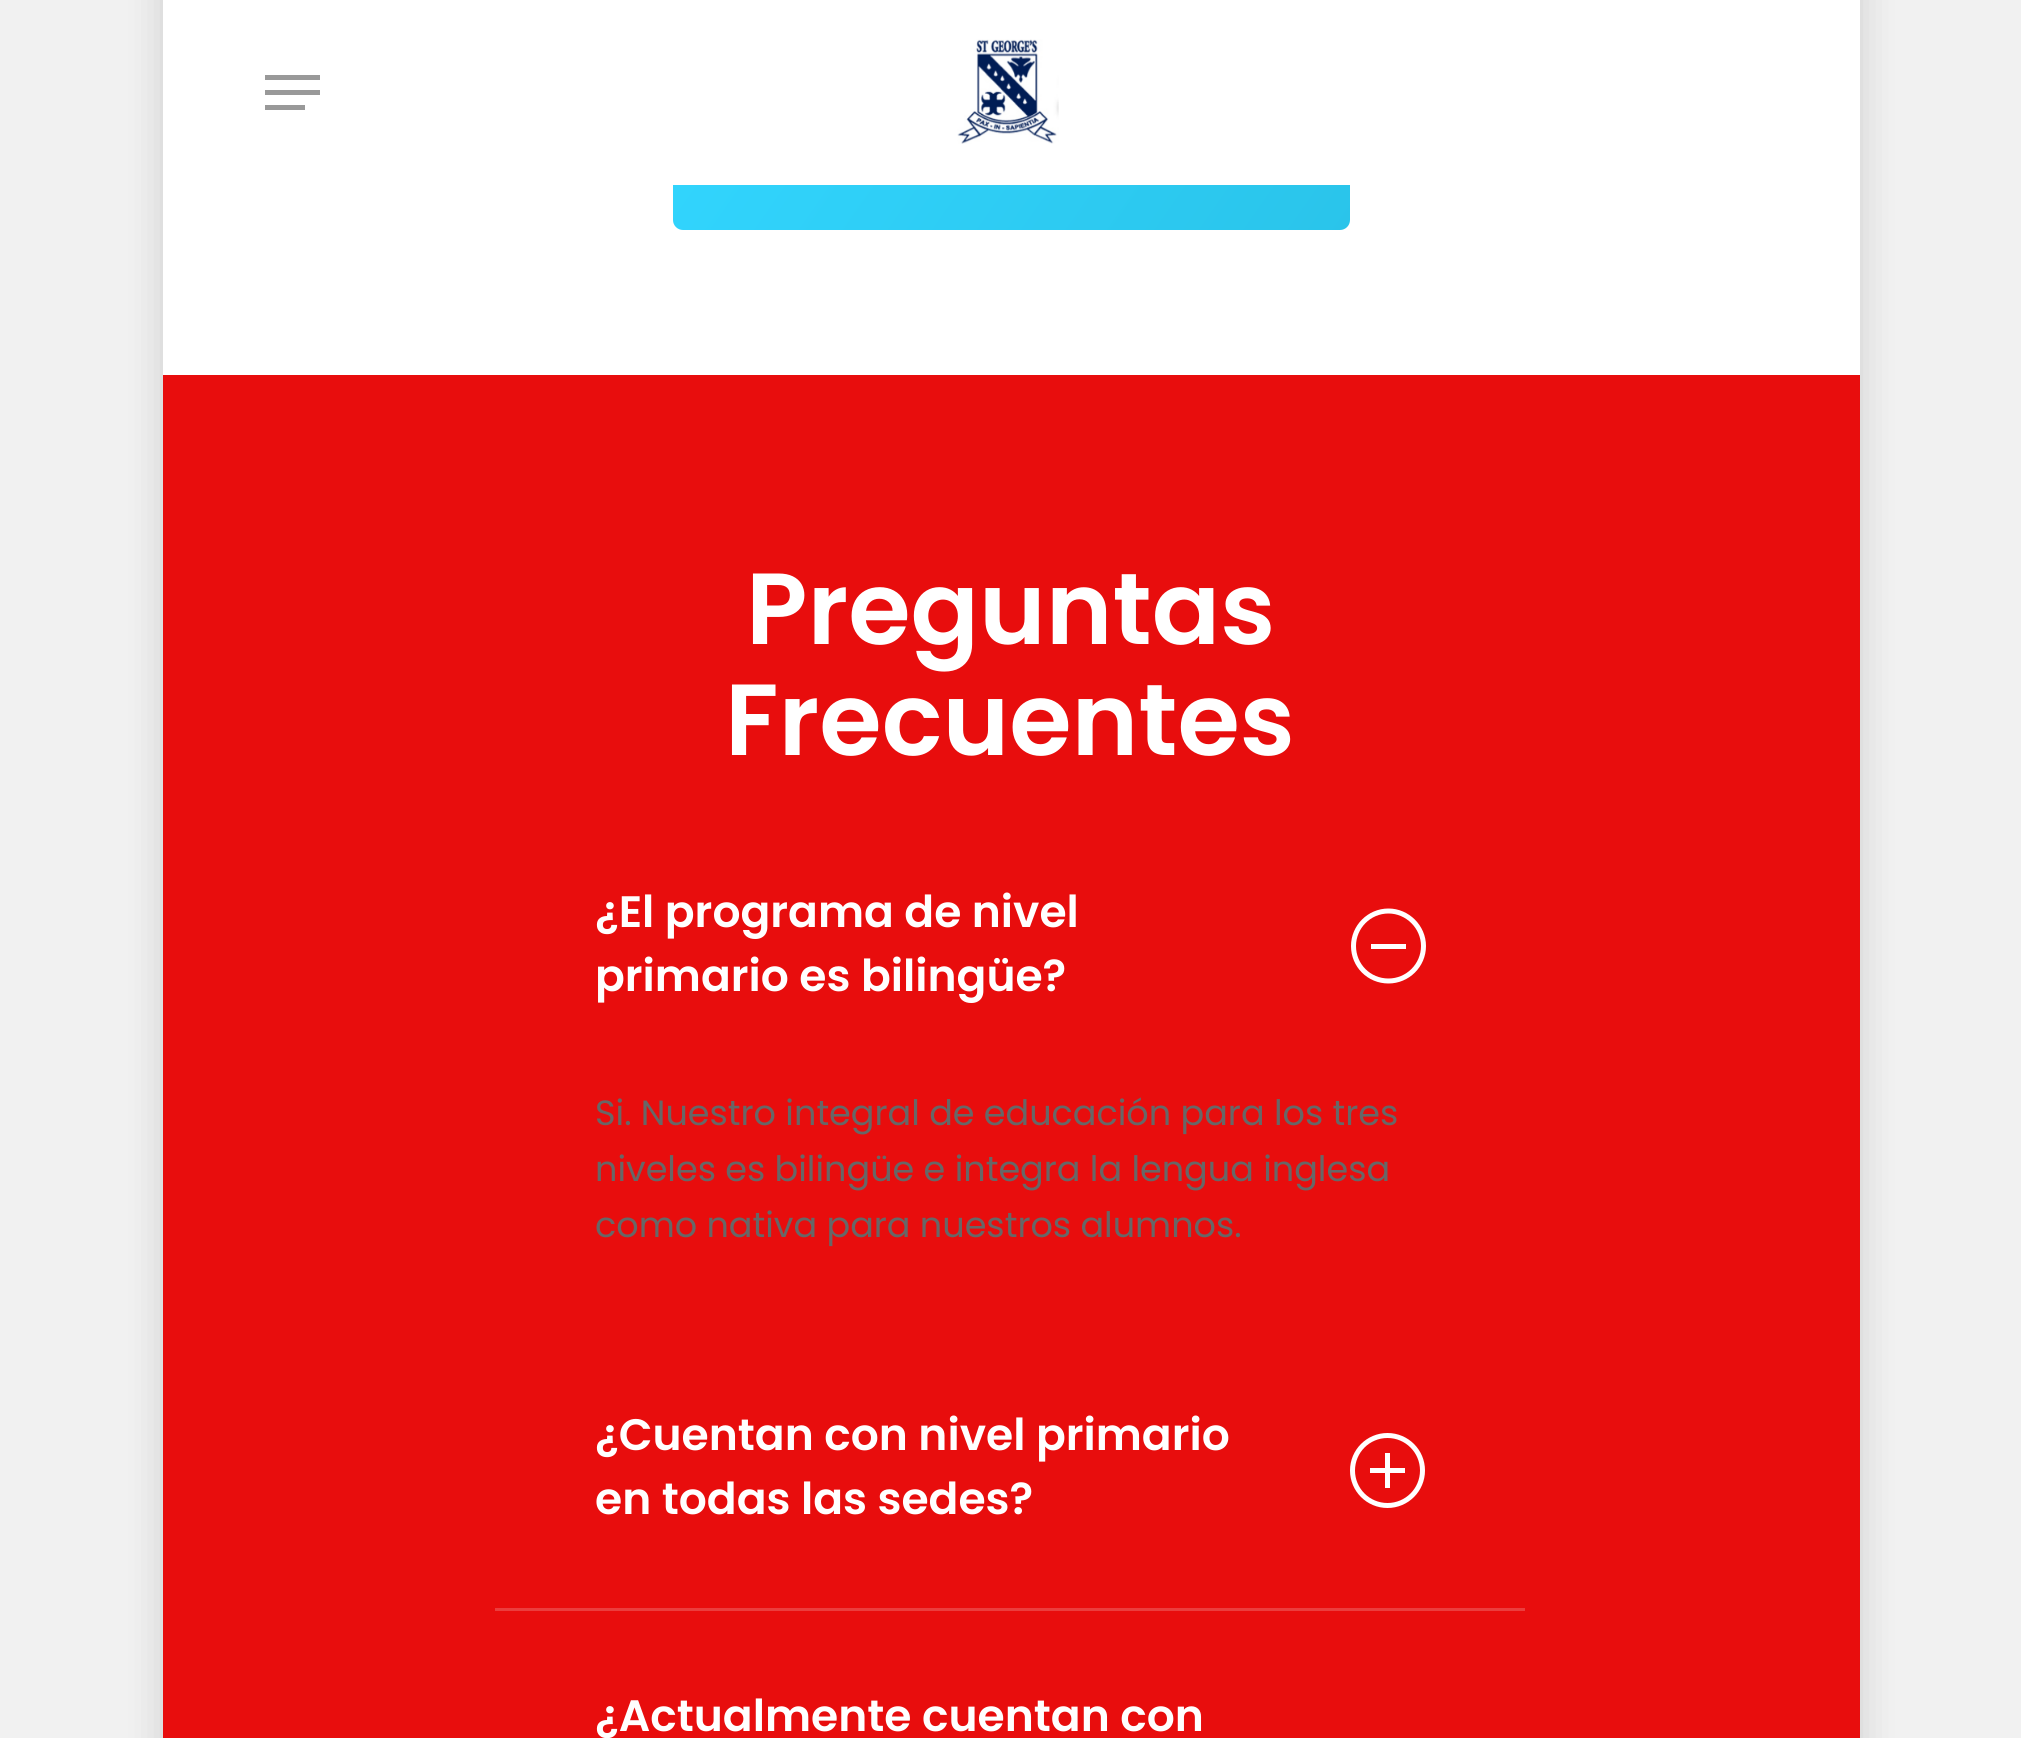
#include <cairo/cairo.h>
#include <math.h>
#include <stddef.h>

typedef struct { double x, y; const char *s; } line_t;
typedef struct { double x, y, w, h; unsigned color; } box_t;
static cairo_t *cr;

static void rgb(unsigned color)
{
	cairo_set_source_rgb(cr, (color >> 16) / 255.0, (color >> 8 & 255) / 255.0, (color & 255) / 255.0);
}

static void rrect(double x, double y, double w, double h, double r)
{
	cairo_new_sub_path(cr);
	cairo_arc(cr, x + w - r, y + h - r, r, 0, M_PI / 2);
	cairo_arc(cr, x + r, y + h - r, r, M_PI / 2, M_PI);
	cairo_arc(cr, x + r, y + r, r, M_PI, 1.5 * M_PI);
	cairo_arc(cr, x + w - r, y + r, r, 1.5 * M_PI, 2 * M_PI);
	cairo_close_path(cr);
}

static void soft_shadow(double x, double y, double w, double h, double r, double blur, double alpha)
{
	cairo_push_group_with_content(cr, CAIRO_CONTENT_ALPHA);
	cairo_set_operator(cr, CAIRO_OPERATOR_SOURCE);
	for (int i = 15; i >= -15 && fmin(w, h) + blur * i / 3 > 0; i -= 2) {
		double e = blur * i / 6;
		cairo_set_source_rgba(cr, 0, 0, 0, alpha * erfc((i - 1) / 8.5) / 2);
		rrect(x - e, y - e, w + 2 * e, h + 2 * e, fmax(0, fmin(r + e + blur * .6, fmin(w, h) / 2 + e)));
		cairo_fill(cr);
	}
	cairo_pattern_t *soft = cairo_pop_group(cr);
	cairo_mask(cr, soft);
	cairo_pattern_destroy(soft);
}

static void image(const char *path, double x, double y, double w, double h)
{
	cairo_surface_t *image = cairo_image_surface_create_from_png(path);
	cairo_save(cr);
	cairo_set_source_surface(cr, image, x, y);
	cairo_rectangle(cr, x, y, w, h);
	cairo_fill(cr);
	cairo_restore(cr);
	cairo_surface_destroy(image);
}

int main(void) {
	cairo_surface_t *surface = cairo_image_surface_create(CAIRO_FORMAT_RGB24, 2021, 1738);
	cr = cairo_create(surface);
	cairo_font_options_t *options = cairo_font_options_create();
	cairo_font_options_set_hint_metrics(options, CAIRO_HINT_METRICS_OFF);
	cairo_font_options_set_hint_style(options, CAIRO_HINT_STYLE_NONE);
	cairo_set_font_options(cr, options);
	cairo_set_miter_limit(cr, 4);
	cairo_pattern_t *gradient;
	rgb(0xf1f1f1);
	cairo_paint(cr);
	rgb(0x000000);
	soft_shadow(163, -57, 1697, 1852, 0, 19, 0.15);
	rgb(0xffffff);
	cairo_rectangle(cr, 163, 185, 1697, 190);
	cairo_fill(cr);
	gradient = cairo_pattern_create_linear(745, -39, 1277, 334);
	cairo_pattern_add_color_stop_rgba(gradient, 0, 0.196, 0.839, 1, 1);
	cairo_pattern_add_color_stop_rgba(gradient, 1, 0.165, 0.769, 0.918, 1);
	cairo_set_source(cr, gradient);
	cairo_pattern_destroy(gradient);
	rrect(673, 65, 677, 165, 10);
	cairo_fill(cr);
	{
		static const box_t items[] = {
			{163, 0, 1697, 185, 0xffffff},
			{265, 75, 55, 5, 0x999999},
			{265, 105, 40, 5, 0x999999},
			{265, 90, 55, 5, 0x999999},
		};
		for (size_t i = 0; i < sizeof items / sizeof *items; i++) {
			rgb(items[i].color);
			cairo_rectangle(cr, items[i].x, items[i].y, items[i].w, items[i].h);
			cairo_fill(cr);
		}
	}
	image("img/1.png", 957, 39, 102, 105);
	rgb(0xe80d0d);
	cairo_rectangle(cr, 163, 375, 1697, 1363);
	cairo_fill(cr);
	cairo_new_path(cr);
	cairo_move_to(cr, 1423.5, 946);
	cairo_curve_to(cr, 1423.5, 965.5, 1407.5, 981, 1388.5, 981);
	cairo_curve_to(cr, 1369, 981, 1353.5, 965.5, 1353.5, 946);
	cairo_curve_to(cr, 1353.5, 927, 1369, 911, 1388.5, 911);
	cairo_curve_to(cr, 1407.5, 911, 1423.5, 927, 1423.5, 946);
	cairo_close_path(cr);
	rgb(0xffffff);
	cairo_set_line_width(cr, 5);
	cairo_stroke(cr);
	cairo_rectangle(cr, 1371, 944, 35, 5);
	cairo_fill(cr);
	rgb(0xeb3d3d);
	cairo_rectangle(cr, 495, 1608, 1030, 3);
	cairo_fill(cr);
	cairo_arc(cr, 1387.5, 1470.5, 35, 0, 2 * M_PI);
	rgb(0xffffff);
	cairo_stroke(cr);
	cairo_rectangle(cr, 1370, 1468, 35, 5);
	cairo_fill(cr);
	cairo_rectangle(cr, 1385, 1453, 5, 35);
	cairo_fill(cr);
	cairo_select_font_face(cr, "Poppins SemiBold", CAIRO_FONT_SLANT_NORMAL, CAIRO_FONT_WEIGHT_NORMAL);
	cairo_set_font_size(cr, 101);
	cairo_move_to(cr, 746, 644);
	cairo_show_text(cr, "Preguntas");
	cairo_move_to(cr, 725, 755);
	cairo_show_text(cr, "Frecuentes");
	cairo_set_font_size(cr, 44);
	cairo_move_to(cr, 595, 927);
	cairo_show_text(cr, "¿El programa de nivel");
	cairo_move_to(cr, 595, 991);
	cairo_show_text(cr, "primario es bilingüe?");
	cairo_select_font_face(cr, "Poppins", CAIRO_FONT_SLANT_NORMAL, CAIRO_FONT_WEIGHT_NORMAL);
	cairo_set_font_size(cr, 35);
	rgb(0x676767);
	{
		static const line_t items[] = {
			{595, 1125, "Si. Nuestro integral de educación para los tres"},
			{595, 1181, "niveles es bilingüe e integra la lengua inglesa"},
			{595, 1237, "como nativa para nuestros alumnos."},
		};
		for (size_t i = 0; i < sizeof items / sizeof *items; i++) {
			cairo_move_to(cr, items[i].x, items[i].y);
			cairo_show_text(cr, items[i].s);
		}
	}
	cairo_select_font_face(cr, "Poppins SemiBold", CAIRO_FONT_SLANT_NORMAL, CAIRO_FONT_WEIGHT_NORMAL);
	cairo_set_font_size(cr, 44);
	rgb(0xffffff);
	{
		static const line_t items[] = {
			{595, 1450, "¿Cuentan con nivel primario"},
			{595, 1514, "en todas las sedes?"},
			{595, 1731, "¿Actualmente cuentan con"},
		};
		for (size_t i = 0; i < sizeof items / sizeof *items; i++) {
			cairo_move_to(cr, items[i].x, items[i].y);
			cairo_show_text(cr, items[i].s);
		}
	}
	cairo_surface_write_to_png(surface, "page.png");
	cairo_font_options_destroy(options);
	cairo_destroy(cr);
	cairo_surface_destroy(surface);
	return 0;
}
